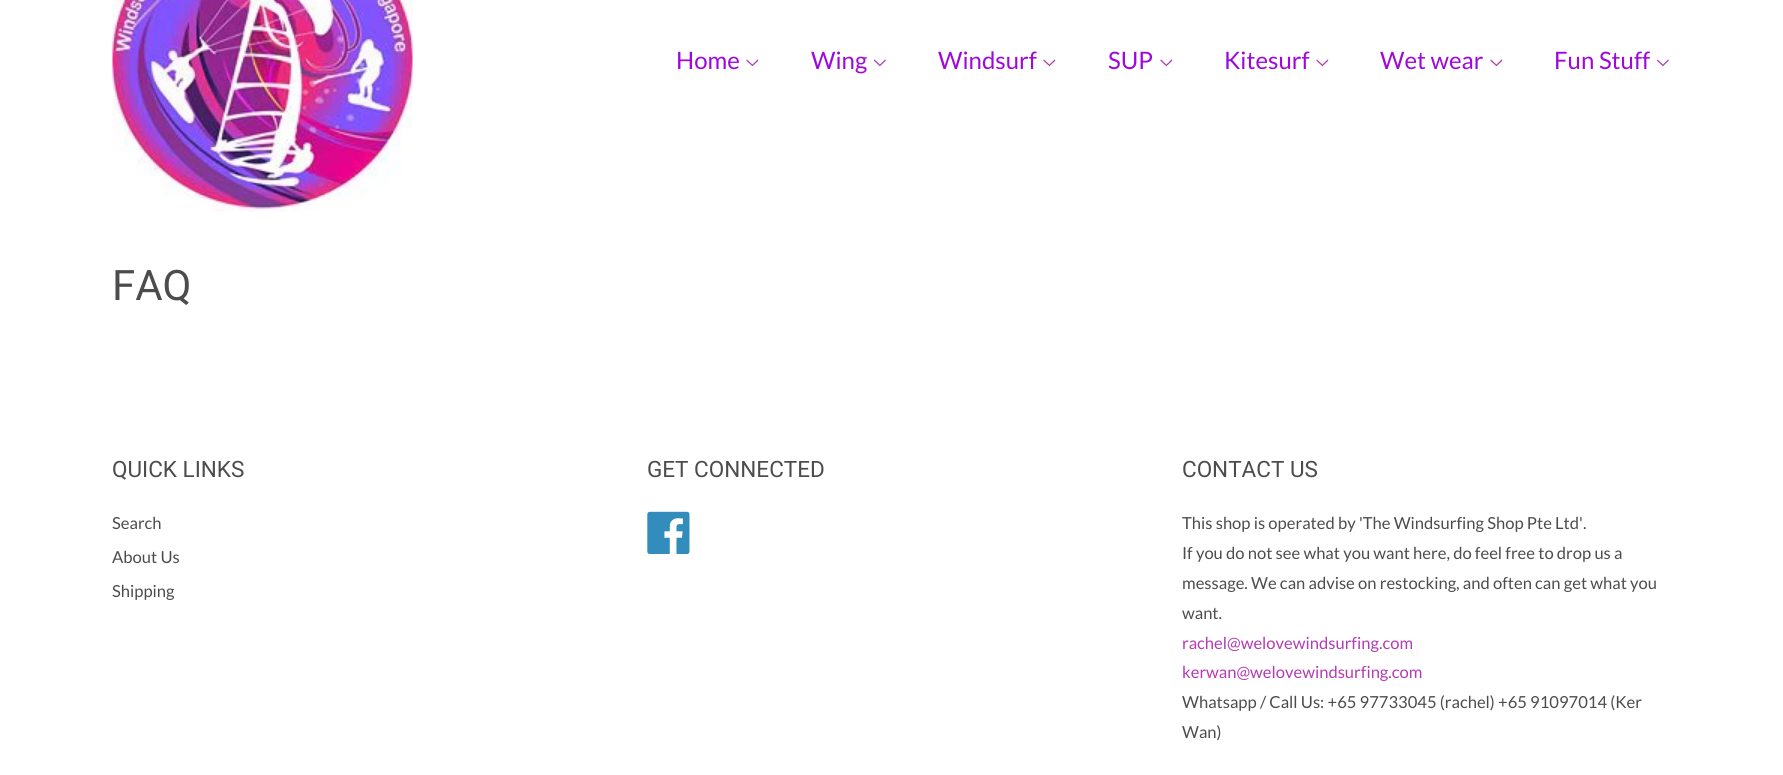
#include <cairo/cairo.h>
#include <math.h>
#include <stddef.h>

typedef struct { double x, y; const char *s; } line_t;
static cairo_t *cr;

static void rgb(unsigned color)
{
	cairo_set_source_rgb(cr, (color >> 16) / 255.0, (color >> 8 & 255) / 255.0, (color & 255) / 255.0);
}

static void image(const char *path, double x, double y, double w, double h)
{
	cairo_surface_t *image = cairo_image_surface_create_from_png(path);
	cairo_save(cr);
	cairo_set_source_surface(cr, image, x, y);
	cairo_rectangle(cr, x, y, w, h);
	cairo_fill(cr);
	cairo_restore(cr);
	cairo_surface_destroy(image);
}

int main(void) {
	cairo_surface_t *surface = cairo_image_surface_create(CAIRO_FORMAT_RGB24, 1783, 775);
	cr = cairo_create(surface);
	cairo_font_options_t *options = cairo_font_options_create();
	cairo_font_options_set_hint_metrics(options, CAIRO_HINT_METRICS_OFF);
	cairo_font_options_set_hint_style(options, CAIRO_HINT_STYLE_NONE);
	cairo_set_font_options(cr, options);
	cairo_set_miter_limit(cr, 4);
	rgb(0xffffff);
	cairo_paint(cr);
	image("img/1.png", 112, 0, 301, 212);
	image("img/2.png", 746, 59, 13, 8);
	image("img/3.png", 873, 59, 13, 8);
	image("img/2.png", 1043, 59, 13, 8);
	image("img/2.png", 1160, 59, 13, 8);
	image("img/2.png", 1316, 59, 13, 8);
	image("img/2.png", 1490, 59, 13, 8);
	image("img/3.png", 1656, 59, 13, 8);
	image("img/4.png", 647, 511, 43, 43);
	cairo_select_font_face(cr, "Lato", CAIRO_FONT_SLANT_NORMAL, CAIRO_FONT_WEIGHT_NORMAL);
	cairo_set_font_size(cr, 24);
	rgb(0x9e08db);
	{
		static const line_t items[] = {
			{676, 69, "Home"},
			{811, 69, "Wing"},
			{938, 69, "Windsurf"},
			{1108, 69, "SUP"},
			{1224, 69, "Kitesurf"},
			{1380, 69, "Wet wear"},
			{1554, 69, "Fun Stuff"},
		};
		for (size_t i = 0; i < sizeof items / sizeof *items; i++) {
			cairo_move_to(cr, items[i].x, items[i].y);
			cairo_show_text(cr, items[i].s);
		}
	}
	cairo_select_font_face(cr, "Roboto", CAIRO_FONT_SLANT_NORMAL, CAIRO_FONT_WEIGHT_NORMAL);
	cairo_set_font_size(cr, 42);
	rgb(0x4c4c4c);
	cairo_move_to(cr, 112, 300);
	cairo_show_text(cr, "FAQ");
	cairo_set_font_size(cr, 22.5);
	cairo_move_to(cr, 112, 477);
	cairo_show_text(cr, "QUICK LINKS");
	cairo_select_font_face(cr, "Lato", CAIRO_FONT_SLANT_NORMAL, CAIRO_FONT_WEIGHT_NORMAL);
	cairo_set_font_size(cr, 16.6);
	{
		static const line_t items[] = {
			{112, 529, "Search"},
			{112, 563, "About Us"},
			{112, 597, "Shipping"},
		};
		for (size_t i = 0; i < sizeof items / sizeof *items; i++) {
			cairo_move_to(cr, items[i].x, items[i].y);
			cairo_show_text(cr, items[i].s);
		}
	}
	cairo_select_font_face(cr, "Roboto", CAIRO_FONT_SLANT_NORMAL, CAIRO_FONT_WEIGHT_NORMAL);
	cairo_set_font_size(cr, 22.5);
	cairo_move_to(cr, 647, 477);
	cairo_show_text(cr, "GET CONNECTED");
	cairo_move_to(cr, 1182, 477);
	cairo_show_text(cr, "CONTACT US");
	cairo_select_font_face(cr, "Lato", CAIRO_FONT_SLANT_NORMAL, CAIRO_FONT_WEIGHT_NORMAL);
	cairo_set_font_size(cr, 16.6);
	{
		static const line_t items[] = {
			{1182, 529, "This shop is operated by 'The Windsurfing Shop Pte Ltd'."},
			{1182, 559, "If you do not see what you want here, do feel free to drop us a"},
			{1182, 589, "message. We can advise on restocking, and often can get what you"},
			{1182, 619, "want."},
		};
		for (size_t i = 0; i < sizeof items / sizeof *items; i++) {
			cairo_move_to(cr, items[i].x, items[i].y);
			cairo_show_text(cr, items[i].s);
		}
	}
	rgb(0xb33bb4);
	cairo_move_to(cr, 1182, 649);
	cairo_show_text(cr, "rachel@welovewindsurfing.com");
	cairo_move_to(cr, 1182, 678);
	cairo_show_text(cr, "kerwan@welovewindsurfing.com");
	rgb(0x4c4c4c);
	cairo_move_to(cr, 1182, 708);
	cairo_show_text(cr, "Whatsapp / Call Us: +65 97733045 (rachel) +65 91097014 (Ker");
	cairo_move_to(cr, 1182, 738);
	cairo_show_text(cr, "Wan)");
	cairo_surface_write_to_png(surface, "page.png");
	cairo_font_options_destroy(options);
	cairo_destroy(cr);
	cairo_surface_destroy(surface);
	return 0;
}
